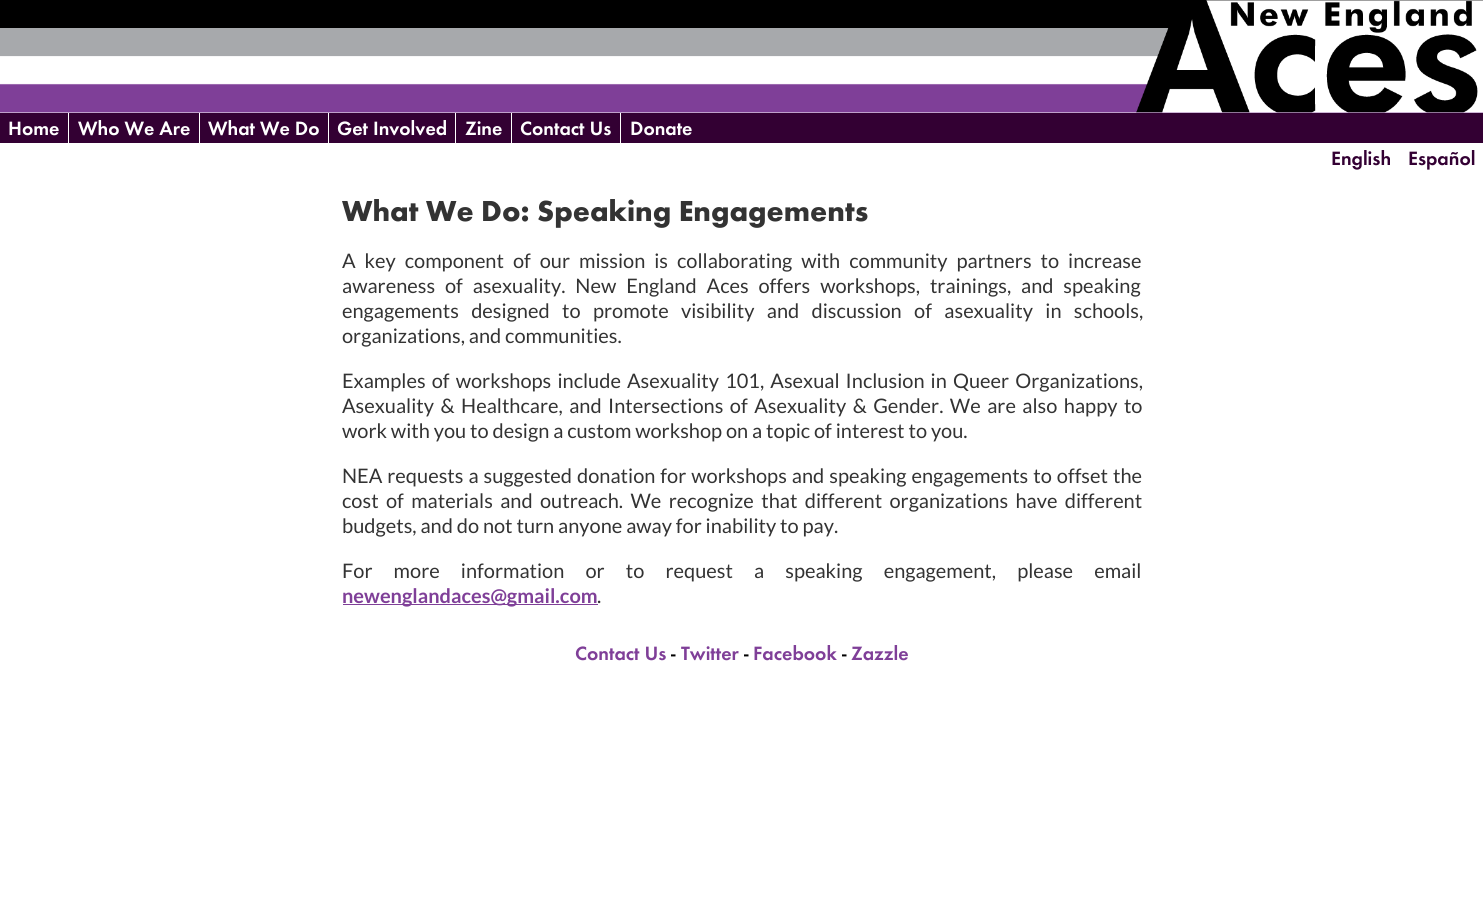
#include <cairo/cairo.h>
#include <math.h>
#include <stddef.h>

typedef struct { double x, y; const char *s; } line_t;
typedef struct { double x, y, w, h; unsigned color; } box_t;
static cairo_t *cr;

static void rgb(unsigned color)
{
	cairo_set_source_rgb(cr, (color >> 16) / 255.0, (color >> 8 & 255) / 255.0, (color & 255) / 255.0);
}

static void tracked(double x, double y, const char *s, double letter, double word)
{
	cairo_move_to(cr, x, y);
	while (*s) {
		char ch[5] = {0};
		int n = 0;
		do ch[n++] = *s++; while ((*s & 0xC0) == 0x80);
		cairo_show_text(cr, ch);
		cairo_rel_move_to(cr, letter + word * (*ch == ' '), 0);
	}
}

static void image(const char *path, double x, double y, double w, double h)
{
	cairo_surface_t *image = cairo_image_surface_create_from_png(path);
	cairo_save(cr);
	cairo_set_source_surface(cr, image, x, y);
	cairo_rectangle(cr, x, y, w, h);
	cairo_fill(cr);
	cairo_restore(cr);
	cairo_surface_destroy(image);
}

int main(void) {
	cairo_surface_t *surface = cairo_image_surface_create(CAIRO_FORMAT_RGB24, 1483, 897);
	cr = cairo_create(surface);
	cairo_font_options_t *options = cairo_font_options_create();
	cairo_font_options_set_hint_metrics(options, CAIRO_HINT_METRICS_OFF);
	cairo_font_options_set_hint_style(options, CAIRO_HINT_STYLE_NONE);
	cairo_set_font_options(cr, options);
	cairo_set_miter_limit(cr, 4);
	rgb(0xffffff);
	cairo_paint(cr);
	image("img/1.png", 0, 0, 1483, 113);
	image("img/2.png", 1136, 0, 347, 113);
	{
		static const box_t items[] = {
			{0, 113, 1483, 30, 0x330033},
			{68, 113, 1, 30, 0xffffff},
			{199, 113, 1, 30, 0xffffff},
			{328, 113, 1, 30, 0xffffff},
			{455, 113, 1, 30, 0xffffff},
			{511, 113, 1, 30, 0xffffff},
			{620, 113, 1, 30, 0xffffff},
			{343, 604, 255, 1, 0x7f3f98},
		};
		for (size_t i = 0; i < sizeof items / sizeof *items; i++) {
			rgb(items[i].color);
			cairo_rectangle(cr, items[i].x, items[i].y, items[i].w, items[i].h);
			cairo_fill(cr);
		}
	}
	cairo_select_font_face(cr, "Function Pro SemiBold", CAIRO_FONT_SLANT_NORMAL, CAIRO_FONT_WEIGHT_NORMAL);
	cairo_set_font_size(cr, 20);
	rgb(0xffffff);
	{
		static const line_t items[] = {
			{8, 135, "Home"},
			{78, 135, "Who We Are"},
			{208, 135, "What We Do"},
			{337, 135, "Get Involved"},
			{465, 135, "Zine"},
			{520, 135, "Contact Us"},
			{630, 135, "Donate"},
		};
		for (size_t i = 0; i < sizeof items / sizeof *items; i++) {
			cairo_move_to(cr, items[i].x, items[i].y);
			cairo_show_text(cr, items[i].s);
		}
	}
	rgb(0x330033);
	cairo_move_to(cr, 1331, 165);
	cairo_show_text(cr, "English");
	cairo_move_to(cr, 1408, 165);
	cairo_show_text(cr, "Español");
	cairo_select_font_face(cr, "Function Pro", CAIRO_FONT_SLANT_NORMAL, CAIRO_FONT_WEIGHT_BOLD);
	cairo_set_font_size(cr, 30);
	rgb(0x333333);
	cairo_move_to(cr, 342, 221);
	cairo_show_text(cr, "What We Do: Speaking Engagements");
	cairo_select_font_face(cr, "Lato", CAIRO_FONT_SLANT_NORMAL, CAIRO_FONT_WEIGHT_NORMAL);
	cairo_set_font_size(cr, 20);
	tracked(342, 268, "A key component of our mission is collaborating with community partners to increase", 0, 5.1);
	tracked(342, 293, "awareness of asexuality. New England Aces offers workshops, trainings, and speaking", 0, 6);
	tracked(342, 318, "engagements designed to promote visibility and discussion of asexuality in schools,", 0, 8.5);
	cairo_move_to(cr, 342, 343);
	cairo_show_text(cr, "organizations, and communities.");
	tracked(342, 388, "Examples of workshops include Asexuality 101, Asexual Inclusion in Queer Organizations,", 0, 2.25);
	tracked(342, 413, "Asexuality & Healthcare, and Intersections of Asexuality & Gender. We are also happy to", 0, 2.6);
	cairo_move_to(cr, 342, 438);
	cairo_show_text(cr, "work with you to design a custom workshop on a topic of interest to you.");
	tracked(342, 483, "NEA requests a suggested donation for workshops and speaking engagements to offset the", 0, 1.1);
	tracked(342, 508, "cost of materials and outreach. We recognize that different organizations have different", 0, 3.5);
	cairo_move_to(cr, 342, 533);
	cairo_show_text(cr, "budgets, and do not turn anyone away for inability to pay.");
	tracked(342, 578, "For more information or to request a speaking engagement, please email", 0, 17.25);
	cairo_select_font_face(cr, "Lato", CAIRO_FONT_SLANT_NORMAL, CAIRO_FONT_WEIGHT_BOLD);
	rgb(0x7f3f98);
	cairo_move_to(cr, 342, 603);
	cairo_show_text(cr, "newenglandaces@gmail.com");
	cairo_select_font_face(cr, "Lato", CAIRO_FONT_SLANT_NORMAL, CAIRO_FONT_WEIGHT_NORMAL);
	rgb(0x333333);
	cairo_move_to(cr, 597, 603);
	cairo_show_text(cr, ".");
	cairo_select_font_face(cr, "Function Pro SemiBold", CAIRO_FONT_SLANT_NORMAL, CAIRO_FONT_WEIGHT_NORMAL);
	rgb(0x7f3f98);
	cairo_move_to(cr, 575, 660);
	cairo_show_text(cr, "Contact Us");
	rgb(0x000000);
	cairo_move_to(cr, 671, 660);
	cairo_show_text(cr, "-");
	rgb(0x7f3f98);
	cairo_move_to(cr, 681, 660);
	cairo_show_text(cr, "Twitter");
	rgb(0x000000);
	cairo_move_to(cr, 744, 660);
	cairo_show_text(cr, "-");
	rgb(0x7f3f98);
	cairo_move_to(cr, 753, 660);
	cairo_show_text(cr, "Facebook");
	rgb(0x000000);
	cairo_move_to(cr, 842, 660);
	cairo_show_text(cr, "-");
	rgb(0x7f3f98);
	cairo_move_to(cr, 851, 660);
	cairo_show_text(cr, "Zazzle");
	cairo_surface_write_to_png(surface, "page.png");
	cairo_font_options_destroy(options);
	cairo_destroy(cr);
	cairo_surface_destroy(surface);
	return 0;
}
